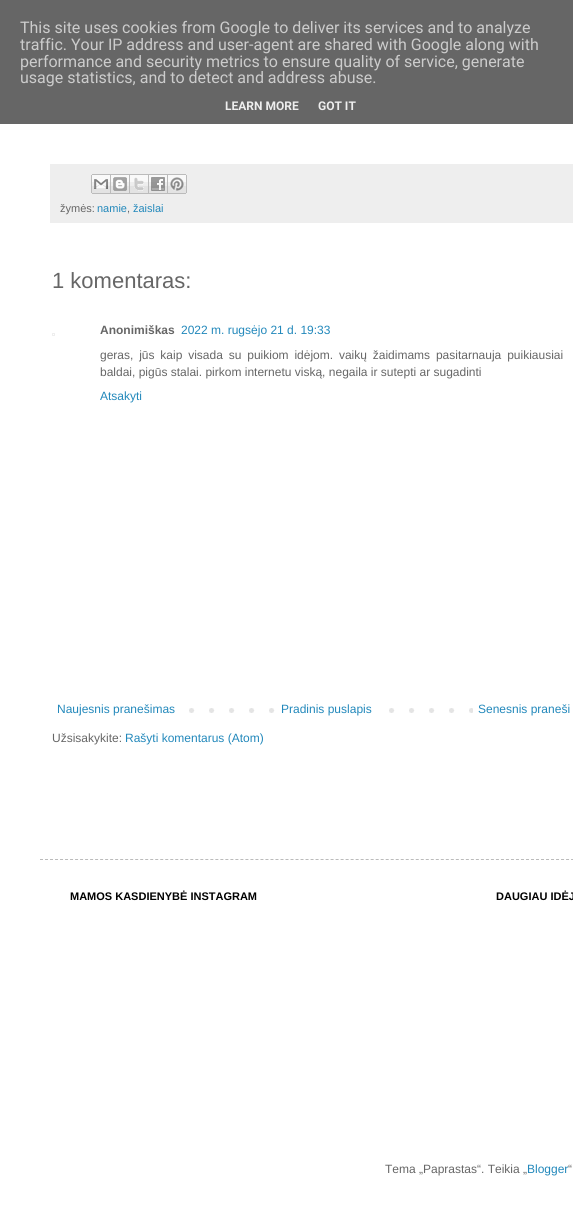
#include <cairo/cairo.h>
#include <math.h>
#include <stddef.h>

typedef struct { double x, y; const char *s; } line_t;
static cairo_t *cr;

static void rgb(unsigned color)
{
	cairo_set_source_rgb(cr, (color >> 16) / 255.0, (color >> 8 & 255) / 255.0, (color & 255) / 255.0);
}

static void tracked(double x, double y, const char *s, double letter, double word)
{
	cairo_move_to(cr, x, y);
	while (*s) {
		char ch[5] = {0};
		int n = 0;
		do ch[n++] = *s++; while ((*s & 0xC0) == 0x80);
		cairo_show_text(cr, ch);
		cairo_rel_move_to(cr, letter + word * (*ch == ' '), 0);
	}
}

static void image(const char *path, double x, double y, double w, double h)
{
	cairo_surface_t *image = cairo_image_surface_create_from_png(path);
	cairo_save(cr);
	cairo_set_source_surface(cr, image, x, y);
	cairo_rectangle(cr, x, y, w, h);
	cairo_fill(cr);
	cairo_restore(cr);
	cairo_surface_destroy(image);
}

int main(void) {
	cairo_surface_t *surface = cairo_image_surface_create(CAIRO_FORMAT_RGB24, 573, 1217);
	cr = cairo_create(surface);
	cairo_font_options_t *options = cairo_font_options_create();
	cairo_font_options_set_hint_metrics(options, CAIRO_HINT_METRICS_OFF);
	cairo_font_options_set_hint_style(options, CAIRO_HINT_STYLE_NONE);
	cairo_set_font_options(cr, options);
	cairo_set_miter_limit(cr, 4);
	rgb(0xffffff);
	cairo_paint(cr);
	rgb(0x666666);
	cairo_rectangle(cr, 0, 0, 573, 124);
	cairo_fill(cr);
	rgb(0xeeeeee);
	cairo_rectangle(cr, 50, 164, 523, 59);
	cairo_fill(cr);
	image("img/1.png", 91, 174, 20, 20);
	image("img/2.png", 111, 174, 19, 20);
	image("img/3.png", 130, 174, 19, 20);
	image("img/4.png", 149, 174, 19, 20);
	image("img/5.png", 168, 174, 19, 20);
	cairo_rectangle(cr, 52.5, 333.5, 2, 2);
	cairo_set_line_width(cr, 1);
	cairo_stroke(cr);
	image("img/6.png", 189, 708, 284, 5);
	rgb(0xffffff);
	cairo_rectangle(cr, 289, 708, 86, 5);
	cairo_fill(cr);
	cairo_new_path(cr);
	cairo_move_to(cr, 40, 859.5);
	cairo_line_to(cr, 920, 859.5);
	rgb(0xbbbbbb);
	cairo_set_dash(cr, (double[]){3, 2.01}, 2, 0);
	cairo_stroke(cr);
	cairo_select_font_face(cr, "Roboto", CAIRO_FONT_SLANT_NORMAL, CAIRO_FONT_WEIGHT_NORMAL);
	cairo_set_font_size(cr, 16);
	rgb(0xcccccc);
	{
		static const line_t items[] = {
			{20, 33, "This site uses cookies from Google to deliver its services and to analyze"},
			{20, 50, "traffic. Your IP address and user-agent are shared with Google along with"},
			{20, 67, "performance and security metrics to ensure quality of service, generate"},
			{20, 83, "usage statistics, and to detect and address abuse."},
		};
		for (size_t i = 0; i < sizeof items / sizeof *items; i++) {
			cairo_move_to(cr, items[i].x, items[i].y);
			cairo_show_text(cr, items[i].s);
		}
	}
	cairo_select_font_face(cr, "Roboto", CAIRO_FONT_SLANT_NORMAL, CAIRO_FONT_WEIGHT_BOLD);
	cairo_set_font_size(cr, 12);
	rgb(0xeeeeee);
	cairo_move_to(cr, 225, 110);
	cairo_show_text(cr, "LEARN MORE");
	cairo_move_to(cr, 318, 110);
	cairo_show_text(cr, "GOT IT");
	cairo_select_font_face(cr, "Liberation Sans", CAIRO_FONT_SLANT_NORMAL, CAIRO_FONT_WEIGHT_NORMAL);
	cairo_set_font_size(cr, 11);
	rgb(0x666666);
	cairo_move_to(cr, 60, 212);
	cairo_show_text(cr, "žymės:");
	rgb(0x2288bb);
	cairo_move_to(cr, 97, 212);
	cairo_show_text(cr, "namie");
	rgb(0x666666);
	cairo_move_to(cr, 127, 212);
	cairo_show_text(cr, ",");
	rgb(0x2288bb);
	cairo_move_to(cr, 133, 212);
	cairo_show_text(cr, "žaislai");
	cairo_set_font_size(cr, 22);
	rgb(0x666666);
	cairo_move_to(cr, 52, 288);
	cairo_show_text(cr, "1 komentaras:");
	cairo_select_font_face(cr, "Liberation Sans", CAIRO_FONT_SLANT_NORMAL, CAIRO_FONT_WEIGHT_BOLD);
	cairo_set_font_size(cr, 12);
	cairo_move_to(cr, 100, 334);
	cairo_show_text(cr, "Anonimiškas");
	cairo_select_font_face(cr, "Liberation Sans", CAIRO_FONT_SLANT_NORMAL, CAIRO_FONT_WEIGHT_NORMAL);
	rgb(0x2288bb);
	cairo_move_to(cr, 181, 334);
	cairo_show_text(cr, "2022 m. rugsėjo 21 d. 19:33");
	rgb(0x666666);
	tracked(100, 359, "geras, jūs kaip visada su puikiom idėjom. vaikų žaidimams pasitarnauja puikiausiai", 0, 2.5);
	cairo_move_to(cr, 100, 376);
	cairo_show_text(cr, "baldai, pigūs stalai. pirkom internetu viską, negaila ir sutepti ar sugadinti");
	rgb(0x2288bb);
	{
		static const line_t items[] = {
			{100, 400, "Atsakyti"},
			{57, 713, "Naujesnis pranešimas"},
			{281, 713, "Pradinis puslapis"},
			{478, 713, "Senesnis praneši"},
		};
		for (size_t i = 0; i < sizeof items / sizeof *items; i++) {
			cairo_move_to(cr, items[i].x, items[i].y);
			cairo_show_text(cr, items[i].s);
		}
	}
	rgb(0x666666);
	cairo_move_to(cr, 52, 742);
	cairo_show_text(cr, "Užsisakykite:");
	rgb(0x2288bb);
	cairo_move_to(cr, 125, 742);
	cairo_show_text(cr, "Rašyti komentarus (Atom)");
	cairo_select_font_face(cr, "Liberation Sans", CAIRO_FONT_SLANT_NORMAL, CAIRO_FONT_WEIGHT_BOLD);
	cairo_set_font_size(cr, 11);
	rgb(0x000000);
	cairo_move_to(cr, 70, 900);
	cairo_show_text(cr, "MAMOS KASDIENYBĖ INSTAGRAM");
	cairo_move_to(cr, 496, 900);
	cairo_show_text(cr, "DAUGIAU IDĖJ");
	cairo_select_font_face(cr, "Liberation Sans", CAIRO_FONT_SLANT_NORMAL, CAIRO_FONT_WEIGHT_NORMAL);
	cairo_set_font_size(cr, 12);
	rgb(0x666666);
	cairo_move_to(cr, 385, 1173);
	cairo_show_text(cr, "Tema „Paprastas“. Teikia „");
	rgb(0x2288bb);
	cairo_move_to(cr, 527, 1173);
	cairo_show_text(cr, "Blogger");
	rgb(0x666666);
	cairo_move_to(cr, 568, 1173);
	cairo_show_text(cr, "“");
	cairo_surface_write_to_png(surface, "page.png");
	cairo_font_options_destroy(options);
	cairo_destroy(cr);
	cairo_surface_destroy(surface);
	return 0;
}
